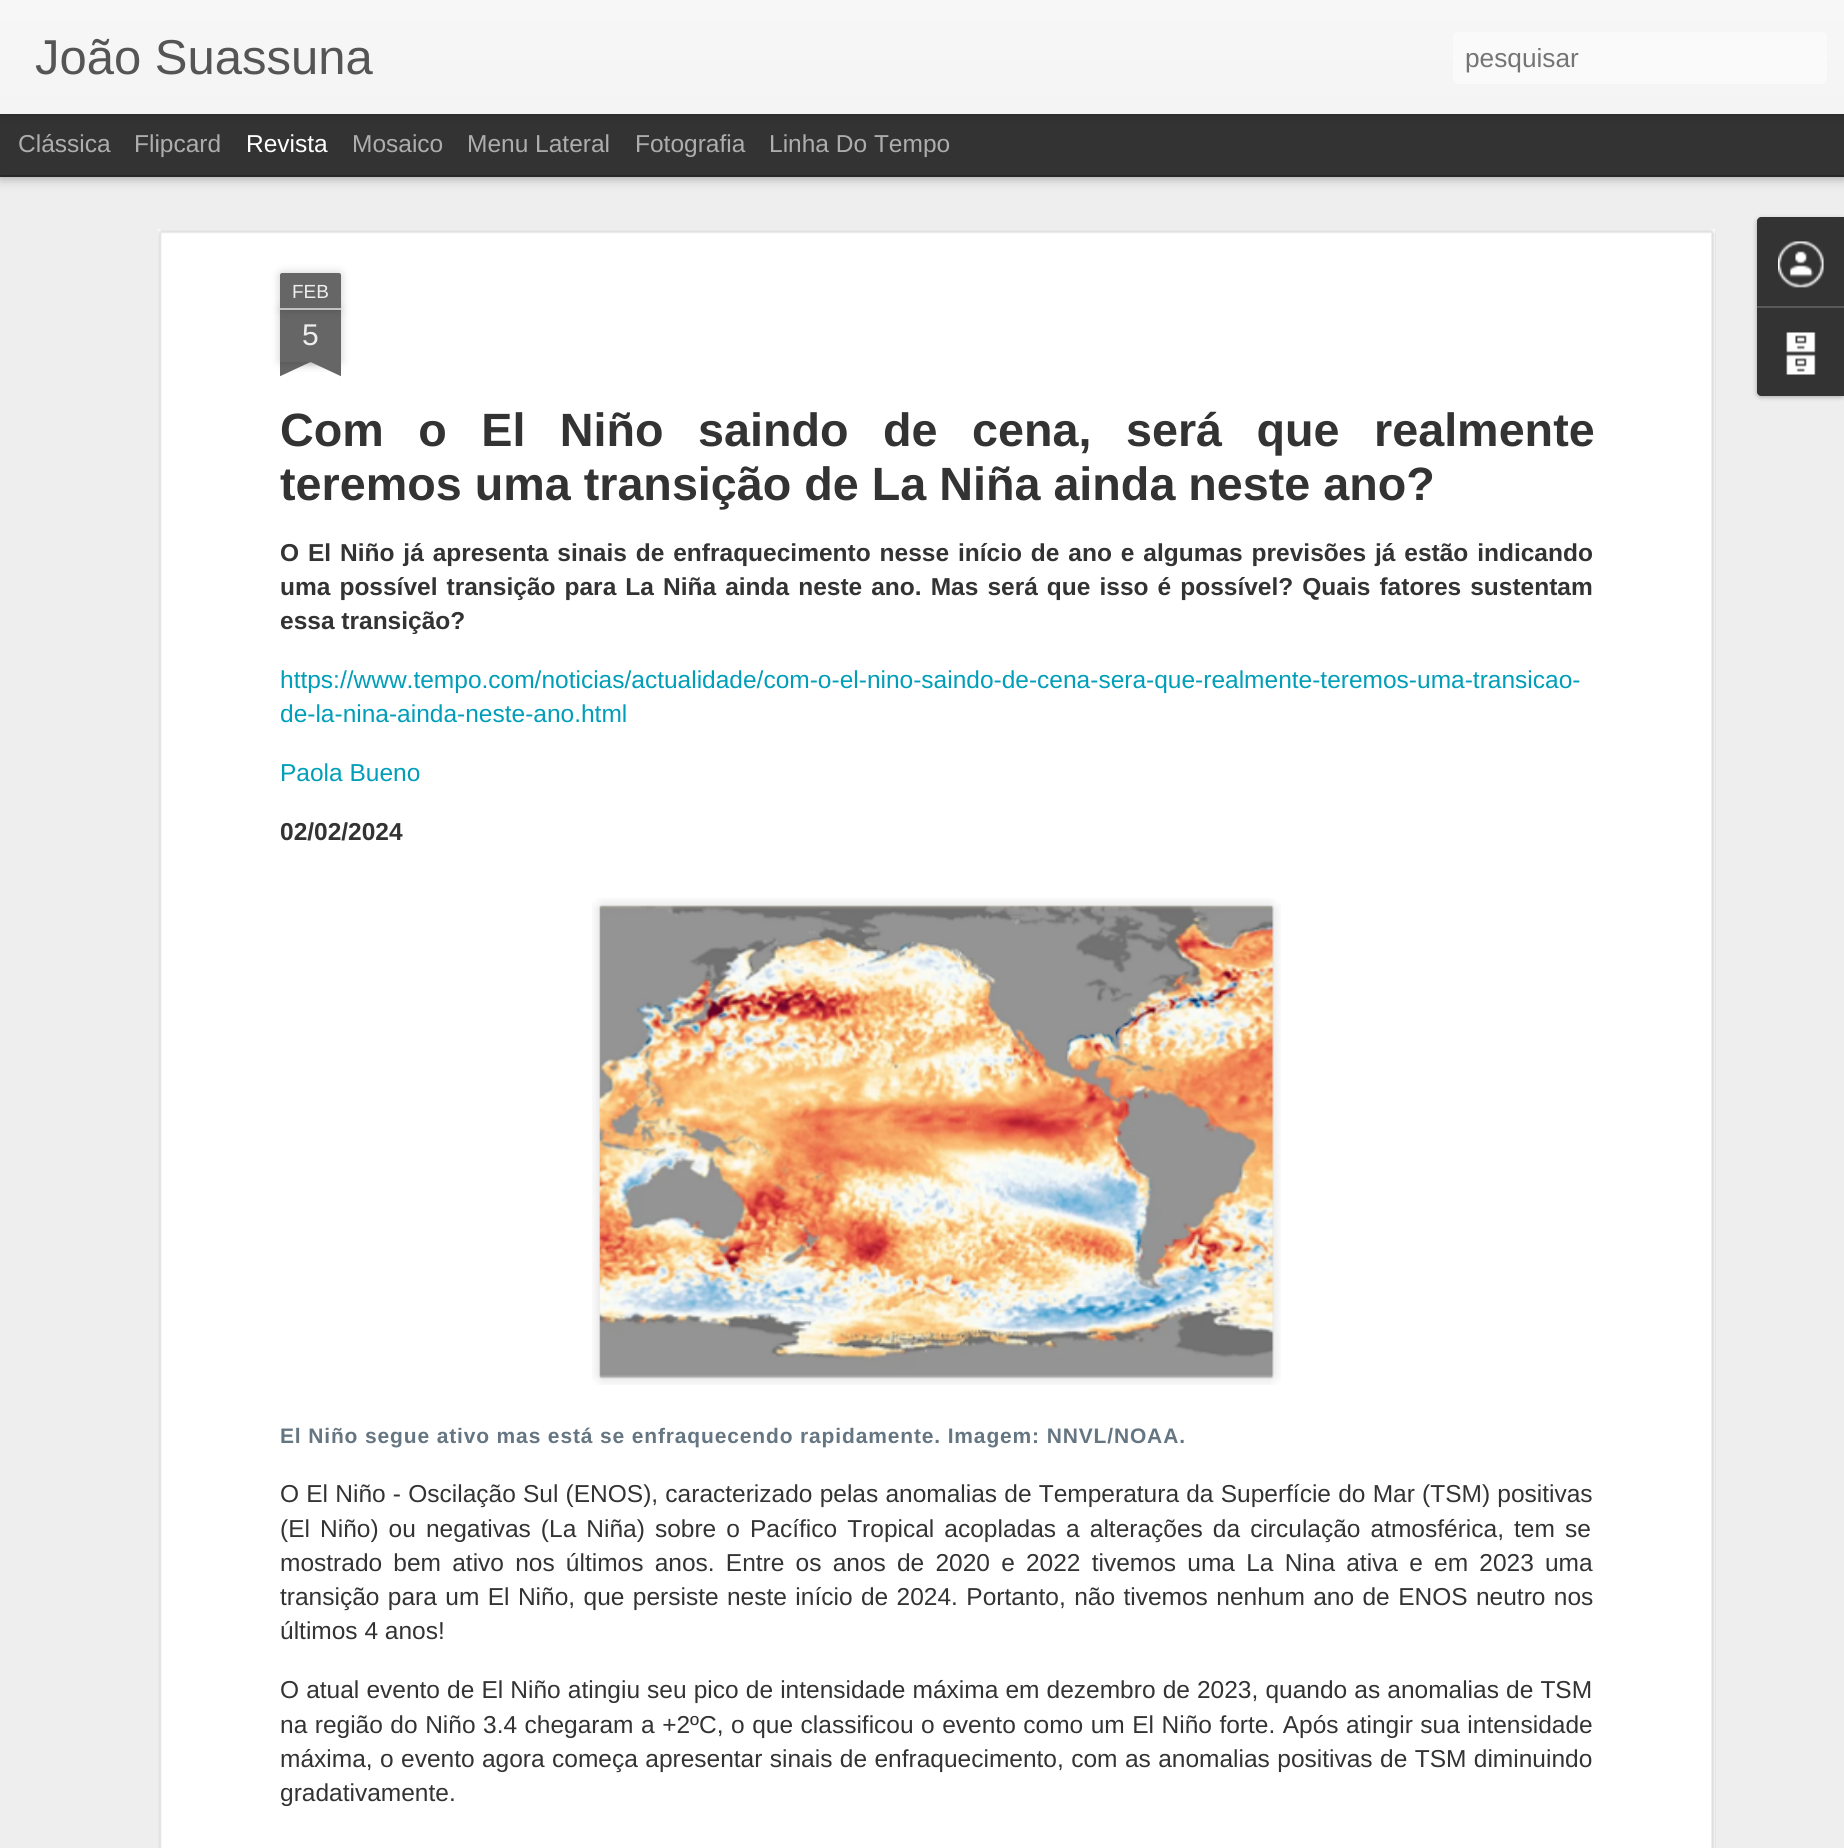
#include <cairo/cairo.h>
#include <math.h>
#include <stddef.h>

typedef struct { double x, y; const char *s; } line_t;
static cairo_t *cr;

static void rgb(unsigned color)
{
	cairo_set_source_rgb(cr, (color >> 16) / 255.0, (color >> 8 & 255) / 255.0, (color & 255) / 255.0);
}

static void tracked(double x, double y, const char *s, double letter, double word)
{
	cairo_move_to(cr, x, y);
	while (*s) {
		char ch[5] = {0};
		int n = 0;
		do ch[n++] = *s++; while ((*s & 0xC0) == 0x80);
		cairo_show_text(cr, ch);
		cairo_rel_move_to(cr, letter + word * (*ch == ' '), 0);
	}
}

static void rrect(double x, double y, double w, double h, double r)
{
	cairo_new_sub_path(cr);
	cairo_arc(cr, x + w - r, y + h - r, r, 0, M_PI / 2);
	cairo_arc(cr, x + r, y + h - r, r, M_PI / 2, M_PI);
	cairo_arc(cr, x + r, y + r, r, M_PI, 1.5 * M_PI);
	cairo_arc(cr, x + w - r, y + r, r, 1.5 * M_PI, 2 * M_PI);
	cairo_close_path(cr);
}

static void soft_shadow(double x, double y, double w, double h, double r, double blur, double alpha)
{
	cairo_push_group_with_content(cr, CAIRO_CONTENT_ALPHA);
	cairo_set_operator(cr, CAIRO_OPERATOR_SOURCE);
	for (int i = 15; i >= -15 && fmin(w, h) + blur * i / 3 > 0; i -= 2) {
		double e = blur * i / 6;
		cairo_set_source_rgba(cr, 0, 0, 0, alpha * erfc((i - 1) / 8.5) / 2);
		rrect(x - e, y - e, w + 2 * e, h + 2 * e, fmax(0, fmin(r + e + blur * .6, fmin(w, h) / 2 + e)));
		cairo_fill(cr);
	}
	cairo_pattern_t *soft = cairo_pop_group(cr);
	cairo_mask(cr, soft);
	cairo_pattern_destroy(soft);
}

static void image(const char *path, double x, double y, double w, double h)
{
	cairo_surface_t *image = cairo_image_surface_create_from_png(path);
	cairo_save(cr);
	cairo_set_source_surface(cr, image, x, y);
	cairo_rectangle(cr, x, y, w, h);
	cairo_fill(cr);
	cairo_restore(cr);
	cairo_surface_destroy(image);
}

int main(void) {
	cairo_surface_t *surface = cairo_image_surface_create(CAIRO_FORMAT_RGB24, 1844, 1848);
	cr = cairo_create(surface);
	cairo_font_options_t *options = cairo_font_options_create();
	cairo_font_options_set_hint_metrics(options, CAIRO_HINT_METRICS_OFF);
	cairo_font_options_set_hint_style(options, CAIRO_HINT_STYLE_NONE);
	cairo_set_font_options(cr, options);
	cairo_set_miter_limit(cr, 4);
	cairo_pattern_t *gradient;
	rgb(0x333333);
	cairo_paint(cr);
	rgb(0xeeeeee);
	cairo_rectangle(cr, 0, 177, 1844, 1671);
	cairo_fill(cr);
	rgb(0x000000);
	soft_shadow(0, 114, 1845, 61, 0, 7, 0.5);
	rgb(0x333333);
	cairo_rectangle(cr, 0, 114, 1844, 61);
	cairo_fill(cr);
	rgb(0x000000);
	soft_shadow(0, 0, 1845, 114, 0, 4.5, 0.3);
	gradient = cairo_pattern_create_linear(0, 0, 0, 114);
	cairo_pattern_add_color_stop_rgba(gradient, 0, 0.969, 0.969, 0.969, 1);
	cairo_pattern_add_color_stop_rgba(gradient, 1, 0.957, 0.957, 0.957, 1);
	cairo_set_source(cr, gradient);
	cairo_pattern_destroy(gradient);
	cairo_rectangle(cr, 0, 0, 1844, 114);
	cairo_fill(cr);
	rgb(0xfafafa);
	rrect(1453, 32, 374, 52, 5);
	cairo_fill(cr);
	rgb(0xffffff);
	cairo_rectangle(cr, 158, 229, 1557, 1619);
	cairo_fill(cr);
	image("img/1.png", 158, 229, 1558, 1619);
	rgb(0x000000);
	soft_shadow(280, 310, 61, 52, 0, 4.5, 0.2);
	rgb(0x666666);
	cairo_rectangle(cr, 280, 310, 61, 52);
	cairo_fill(cr);
	rgb(0x000000);
	soft_shadow(280, 273, 61, 37, 2, 4.5, 0.2);
	rgb(0x666666);
	cairo_new_path(cr);
	cairo_move_to(cr, 282, 273);
	cairo_line_to(cr, 339, 273);
	cairo_curve_to(cr, 340, 273, 341, 274, 341, 275);
	cairo_line_to(cr, 341, 310);
	cairo_line_to(cr, 280, 310);
	cairo_line_to(cr, 280, 275);
	cairo_curve_to(cr, 280, 274, 281, 273, 282, 273);
	cairo_close_path(cr);
	cairo_fill(cr);
	rgb(0xc2c2c2);
	cairo_rectangle(cr, 280, 308, 61, 2);
	cairo_fill(cr);
	cairo_save(cr);
	cairo_rectangle(cr, 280, 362, 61, 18);
	cairo_clip(cr);
	rgb(0x000000);
	soft_shadow(264, 345, 88, 17, 0, 4.5, 0.2);
	cairo_restore(cr);
	cairo_save(cr);
	cairo_rectangle(cr, 280, 362, 61, 18);
	cairo_clip(cr);
	rgb(0x666666);
	cairo_new_path(cr);
	cairo_move_to(cr, 265, 364);
	cairo_line_to(cr, 344, 327);
	cairo_line_to(cr, 351, 343);
	cairo_line_to(cr, 272, 380);
	cairo_close_path(cr);
	cairo_fill(cr);
	cairo_restore(cr);
	cairo_save(cr);
	cairo_rectangle(cr, 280, 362, 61, 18);
	cairo_clip(cr);
	rgb(0x000000);
	soft_shadow(270, 345, 87, 17, 0, 4.5, 0.2);
	cairo_restore(cr);
	cairo_save(cr);
	cairo_rectangle(cr, 280, 362, 61, 18);
	cairo_clip(cr);
	rgb(0x666666);
	cairo_new_path(cr);
	cairo_move_to(cr, 277, 327);
	cairo_line_to(cr, 357, 364);
	cairo_line_to(cr, 349, 380);
	cairo_line_to(cr, 270, 343);
	cairo_close_path(cr);
	cairo_fill(cr);
	cairo_restore(cr);
	image("img/2.png", 592, 898, 689, 487);
	image("img/3.png", 599, 905, 675, 474);
	rgb(0x000000);
	soft_shadow(1757, 219, 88, 178, 4, 2.5, 0.3);
	rgb(0x333333);
	cairo_new_path(cr);
	cairo_move_to(cr, 1761, 217);
	cairo_line_to(cr, 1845, 217);
	cairo_line_to(cr, 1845, 306);
	cairo_line_to(cr, 1757, 306);
	cairo_line_to(cr, 1757, 221);
	cairo_curve_to(cr, 1757, 219, 1759, 217, 1761, 217);
	cairo_close_path(cr);
	cairo_fill(cr);
	image("img/4.png", 1778, 241, 46, 47);
	cairo_new_path(cr);
	cairo_move_to(cr, 1757, 306);
	cairo_line_to(cr, 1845, 306);
	cairo_line_to(cr, 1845, 396);
	cairo_line_to(cr, 1761, 396);
	cairo_curve_to(cr, 1759, 396, 1757, 394, 1757, 392);
	cairo_close_path(cr);
	cairo_fill(cr);
	rgb(0x585858);
	cairo_rectangle(cr, 1757, 306, 87, 2);
	cairo_fill(cr);
	image("img/5.png", 1786, 332, 30, 43);
	cairo_select_font_face(cr, "Liberation Sans", CAIRO_FONT_SLANT_NORMAL, CAIRO_FONT_WEIGHT_NORMAL);
	cairo_set_font_size(cr, 49);
	rgb(0x555555);
	cairo_move_to(cr, 35, 74);
	cairo_show_text(cr, "João Suassuna");
	cairo_set_font_size(cr, 26.25);
	rgb(0x757575);
	cairo_move_to(cr, 1465, 67);
	cairo_show_text(cr, "pesquisar");
	cairo_set_font_size(cr, 24.5);
	rgb(0xadadad);
	cairo_move_to(cr, 18, 152);
	cairo_show_text(cr, "Clássica");
	cairo_move_to(cr, 134, 152);
	cairo_show_text(cr, "Flipcard");
	rgb(0xffffff);
	cairo_move_to(cr, 246, 152);
	cairo_show_text(cr, "Revista");
	rgb(0xadadad);
	{
		static const line_t items[] = {
			{352, 152, "Mosaico"},
			{467, 152, "Menu Lateral"},
			{635, 152, "Fotografia"},
			{769, 152, "Linha Do Tempo"},
		};
		for (size_t i = 0; i < sizeof items / sizeof *items; i++) {
			cairo_move_to(cr, items[i].x, items[i].y);
			cairo_show_text(cr, items[i].s);
		}
	}
	cairo_set_font_size(cr, 19);
	rgb(0xeeeeee);
	cairo_move_to(cr, 292, 298);
	cairo_show_text(cr, "FEB");
	cairo_set_font_size(cr, 30);
	cairo_move_to(cr, 302, 345);
	cairo_show_text(cr, "5");
	cairo_select_font_face(cr, "Liberation Sans", CAIRO_FONT_SLANT_NORMAL, CAIRO_FONT_WEIGHT_BOLD);
	cairo_set_font_size(cr, 46.7);
	rgb(0x333333);
	tracked(280, 446, "Com o El Niño saindo de cena, será que realmente", 0, 21.5);
	cairo_move_to(cr, 280, 500);
	cairo_show_text(cr, "teremos uma transição de La Niña ainda neste ano?");
	cairo_set_font_size(cr, 24.5);
	tracked(280, 561, "O El Niño já apresenta sinais de enfraquecimento nesse início de ano e algumas previsões já estão indicando", 0, 2.1);
	tracked(280, 595, "uma possível transição para La Niña ainda neste ano. Mas será que isso é possível? Quais fatores sustentam", 0, 2.25);
	cairo_move_to(cr, 280, 629);
	cairo_show_text(cr, "essa transição?");
	cairo_select_font_face(cr, "Liberation Sans", CAIRO_FONT_SLANT_NORMAL, CAIRO_FONT_WEIGHT_NORMAL);
	rgb(0x009eb8);
	{
		static const line_t items[] = {
			{280, 688, "https://www.tempo.com/noticias/actualidade/com-o-el-nino-saindo-de-cena-sera-que-realmente-teremos-uma-transicao-"},
			{280, 722, "de-la-nina-ainda-neste-ano.html"},
			{280, 781, "Paola Bueno"},
		};
		for (size_t i = 0; i < sizeof items / sizeof *items; i++) {
			cairo_move_to(cr, items[i].x, items[i].y);
			cairo_show_text(cr, items[i].s);
		}
	}
	cairo_select_font_face(cr, "Liberation Sans", CAIRO_FONT_SLANT_NORMAL, CAIRO_FONT_WEIGHT_BOLD);
	rgb(0x333333);
	cairo_move_to(cr, 280, 840);
	cairo_show_text(cr, "02/02/2024");
	cairo_set_font_size(cr, 21);
	rgb(0x657682);
	tracked(280, 1443, "El Niño segue ativo mas está se enfraquecendo rapidamente. Imagem: NNVL/NOAA.", 0.85, 0);
	cairo_select_font_face(cr, "Liberation Sans", CAIRO_FONT_SLANT_NORMAL, CAIRO_FONT_WEIGHT_NORMAL);
	cairo_set_font_size(cr, 24.5);
	rgb(0x333333);
	tracked(280, 1502, "O El Niño - Oscilação Sul (ENOS), caracterizado pelas anomalias de Temperatura da Superfície do Mar (TSM) positivas", 0, 0.4);
	tracked(280, 1537, "(El Niño) ou negativas (La Niña) sobre o Pacífico Tropical acopladas a alterações da circulação atmosférica, tem se", 0, 3.25);
	tracked(280, 1571, "mostrado bem ativo nos últimos anos. Entre os anos de 2020 e 2022 tivemos uma La Nina ativa e em 2023 uma", 0, 4.4);
	tracked(280, 1605, "transição para um El Niño, que persiste neste início de 2024. Portanto, não tivemos nenhum ano de ENOS neutro nos", 0, 1.6);
	cairo_move_to(cr, 280, 1639);
	cairo_show_text(cr, "últimos 4 anos!");
	tracked(280, 1698, "O atual evento de El Niño atingiu seu pico de intensidade máxima em dezembro de 2023, quando as anomalias de TSM", 0, 0.3);
	tracked(280, 1733, "na região do Niño 3.4 chegaram a +2ºC, o que classificou o evento como um El Niño forte. Após atingir sua intensidade", 0, 0.7);
	tracked(280, 1767, "máxima, o evento agora começa apresentar sinais de enfraquecimento, com as anomalias positivas de TSM diminuindo", 0, 0.6);
	cairo_move_to(cr, 280, 1801);
	cairo_show_text(cr, "gradativamente.");
	cairo_surface_write_to_png(surface, "page.png");
	cairo_font_options_destroy(options);
	cairo_destroy(cr);
	cairo_surface_destroy(surface);
	return 0;
}
